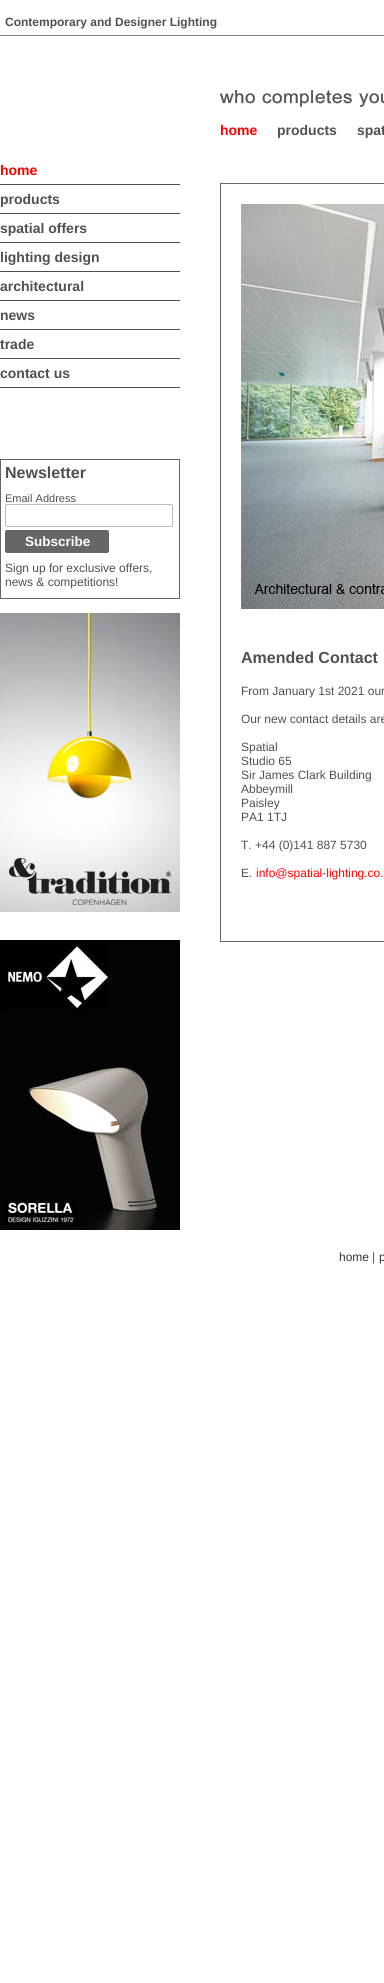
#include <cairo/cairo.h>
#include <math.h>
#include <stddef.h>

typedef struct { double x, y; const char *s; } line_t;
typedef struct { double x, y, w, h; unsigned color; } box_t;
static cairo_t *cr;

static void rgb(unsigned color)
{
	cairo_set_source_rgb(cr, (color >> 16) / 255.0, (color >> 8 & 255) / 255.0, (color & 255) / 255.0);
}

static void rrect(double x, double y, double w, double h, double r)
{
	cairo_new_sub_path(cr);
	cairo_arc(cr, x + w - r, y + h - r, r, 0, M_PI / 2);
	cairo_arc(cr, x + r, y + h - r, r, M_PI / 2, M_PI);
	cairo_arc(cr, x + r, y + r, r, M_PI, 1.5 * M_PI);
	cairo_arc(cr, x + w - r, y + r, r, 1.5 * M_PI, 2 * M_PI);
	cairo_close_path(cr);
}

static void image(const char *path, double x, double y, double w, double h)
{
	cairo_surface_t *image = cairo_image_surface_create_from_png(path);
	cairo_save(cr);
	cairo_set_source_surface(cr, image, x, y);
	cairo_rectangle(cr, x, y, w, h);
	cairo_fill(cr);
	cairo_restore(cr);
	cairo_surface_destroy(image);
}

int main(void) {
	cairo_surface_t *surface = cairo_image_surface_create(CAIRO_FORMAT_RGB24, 384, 1983);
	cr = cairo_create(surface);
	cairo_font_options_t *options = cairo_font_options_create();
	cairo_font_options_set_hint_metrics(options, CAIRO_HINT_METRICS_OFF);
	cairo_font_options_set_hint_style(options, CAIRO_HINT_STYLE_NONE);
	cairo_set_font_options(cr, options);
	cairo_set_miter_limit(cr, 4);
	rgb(0xffffff);
	cairo_paint(cr);
	rgb(0x808080);
	cairo_rectangle(cr, 0, 35, 384, 1);
	cairo_fill(cr);
	image("img/1.png", 220, 90, 164, 17);
	{
		static const box_t items[] = {
			{0, 184, 180, 1, 0x505050},
			{0, 213, 180, 1, 0x505050},
			{0, 242, 180, 1, 0x505050},
			{0, 271, 180, 1, 0x505050},
			{0, 300, 180, 1, 0x505050},
			{0, 329, 180, 1, 0x505050},
			{0, 358, 180, 1, 0x505050},
			{0, 387, 180, 1, 0x505050},
		};
		for (size_t i = 0; i < sizeof items / sizeof *items; i++) {
			rgb(items[i].color);
			cairo_rectangle(cr, items[i].x, items[i].y, items[i].w, items[i].h);
			cairo_fill(cr);
		}
	}
	cairo_rectangle(cr, 0.5, 459.5, 179, 139);
	rgb(0x666666);
	cairo_set_line_width(cr, 1);
	cairo_stroke(cr);
	rrect(5.5, 504.5, 167, 22, 1.5);
	rgb(0xbbbbbb);
	cairo_stroke(cr);
	rgb(0x666666);
	rrect(5, 530, 104, 23, 2);
	cairo_fill(cr);
	image("img/2.png", 0, 613, 180, 299);
	image("img/3.png", 0, 940, 180, 290);
	cairo_rectangle(cr, 220.5, 183.5, 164, 758);
	cairo_stroke(cr);
	image("img/4.png", 241, 204, 143, 405);
	cairo_select_font_face(cr, "Liberation Sans", CAIRO_FONT_SLANT_NORMAL, CAIRO_FONT_WEIGHT_BOLD);
	cairo_set_font_size(cr, 12);
	rgb(0x505050);
	cairo_move_to(cr, 5, 26);
	cairo_show_text(cr, "Contemporary and Designer Lighting");
	cairo_set_font_size(cr, 14);
	rgb(0xff0000);
	cairo_move_to(cr, 220, 135);
	cairo_show_text(cr, "home");
	rgb(0x505050);
	cairo_move_to(cr, 277, 135);
	cairo_show_text(cr, "products");
	cairo_move_to(cr, 357, 135);
	cairo_show_text(cr, "spat");
	rgb(0xff0000);
	cairo_move_to(cr, 0, 175);
	cairo_show_text(cr, "home");
	rgb(0x505050);
	{
		static const line_t items[] = {
			{0, 204, "products"},
			{0, 233, "spatial offers"},
			{0, 262, "lighting design"},
			{0, 291, "architectural"},
			{0, 320, "news"},
			{0, 349, "trade"},
			{0, 378, "contact us"},
		};
		for (size_t i = 0; i < sizeof items / sizeof *items; i++) {
			cairo_move_to(cr, items[i].x, items[i].y);
			cairo_show_text(cr, items[i].s);
		}
	}
	cairo_set_font_size(cr, 16);
	cairo_move_to(cr, 5, 478);
	cairo_show_text(cr, "Newsletter");
	cairo_select_font_face(cr, "Liberation Sans", CAIRO_FONT_SLANT_NORMAL, CAIRO_FONT_WEIGHT_NORMAL);
	cairo_set_font_size(cr, 11);
	cairo_move_to(cr, 5, 502);
	cairo_show_text(cr, "Email Address");
	cairo_select_font_face(cr, "Liberation Sans", CAIRO_FONT_SLANT_NORMAL, CAIRO_FONT_WEIGHT_BOLD);
	cairo_set_font_size(cr, 13.5);
	rgb(0xffffff);
	cairo_move_to(cr, 25, 546);
	cairo_show_text(cr, "Subscribe");
	cairo_select_font_face(cr, "Liberation Sans", CAIRO_FONT_SLANT_NORMAL, CAIRO_FONT_WEIGHT_NORMAL);
	cairo_set_font_size(cr, 12);
	rgb(0x505050);
	cairo_move_to(cr, 5, 572);
	cairo_show_text(cr, "Sign up for exclusive offers,");
	cairo_move_to(cr, 5, 586);
	cairo_show_text(cr, "news & competitions!");
	cairo_select_font_face(cr, "Liberation Sans", CAIRO_FONT_SLANT_NORMAL, CAIRO_FONT_WEIGHT_BOLD);
	cairo_set_font_size(cr, 16);
	cairo_move_to(cr, 241, 663);
	cairo_show_text(cr, "Amended Contact");
	cairo_select_font_face(cr, "Liberation Sans", CAIRO_FONT_SLANT_NORMAL, CAIRO_FONT_WEIGHT_NORMAL);
	cairo_set_font_size(cr, 12);
	{
		static const line_t items[] = {
			{241, 695, "From January 1st 2021 our"},
			{241, 723, "Our new contact details are"},
			{241, 751, "Spatial"},
			{241, 765, "Studio 65"},
			{241, 779, "Sir James Clark Building"},
			{241, 793, "Abbeymill"},
			{241, 807, "Paisley"},
			{241, 821, "PA1 1TJ"},
			{241, 849, "T. +44 (0)141 887 5730"},
			{241, 877, "E."},
		};
		for (size_t i = 0; i < sizeof items / sizeof *items; i++) {
			cairo_move_to(cr, items[i].x, items[i].y);
			cairo_show_text(cr, items[i].s);
		}
	}
	rgb(0xff0000);
	cairo_move_to(cr, 256, 877);
	cairo_show_text(cr, "info@spatial-lighting.co.");
	rgb(0x333333);
	cairo_move_to(cr, 339, 1261);
	cairo_show_text(cr, "home");
	rgb(0x505050);
	cairo_move_to(cr, 372, 1261);
	cairo_show_text(cr, "|");
	rgb(0x333333);
	cairo_move_to(cr, 379, 1261);
	cairo_show_text(cr, "p");
	cairo_surface_write_to_png(surface, "page.png");
	cairo_font_options_destroy(options);
	cairo_destroy(cr);
	cairo_surface_destroy(surface);
	return 0;
}
